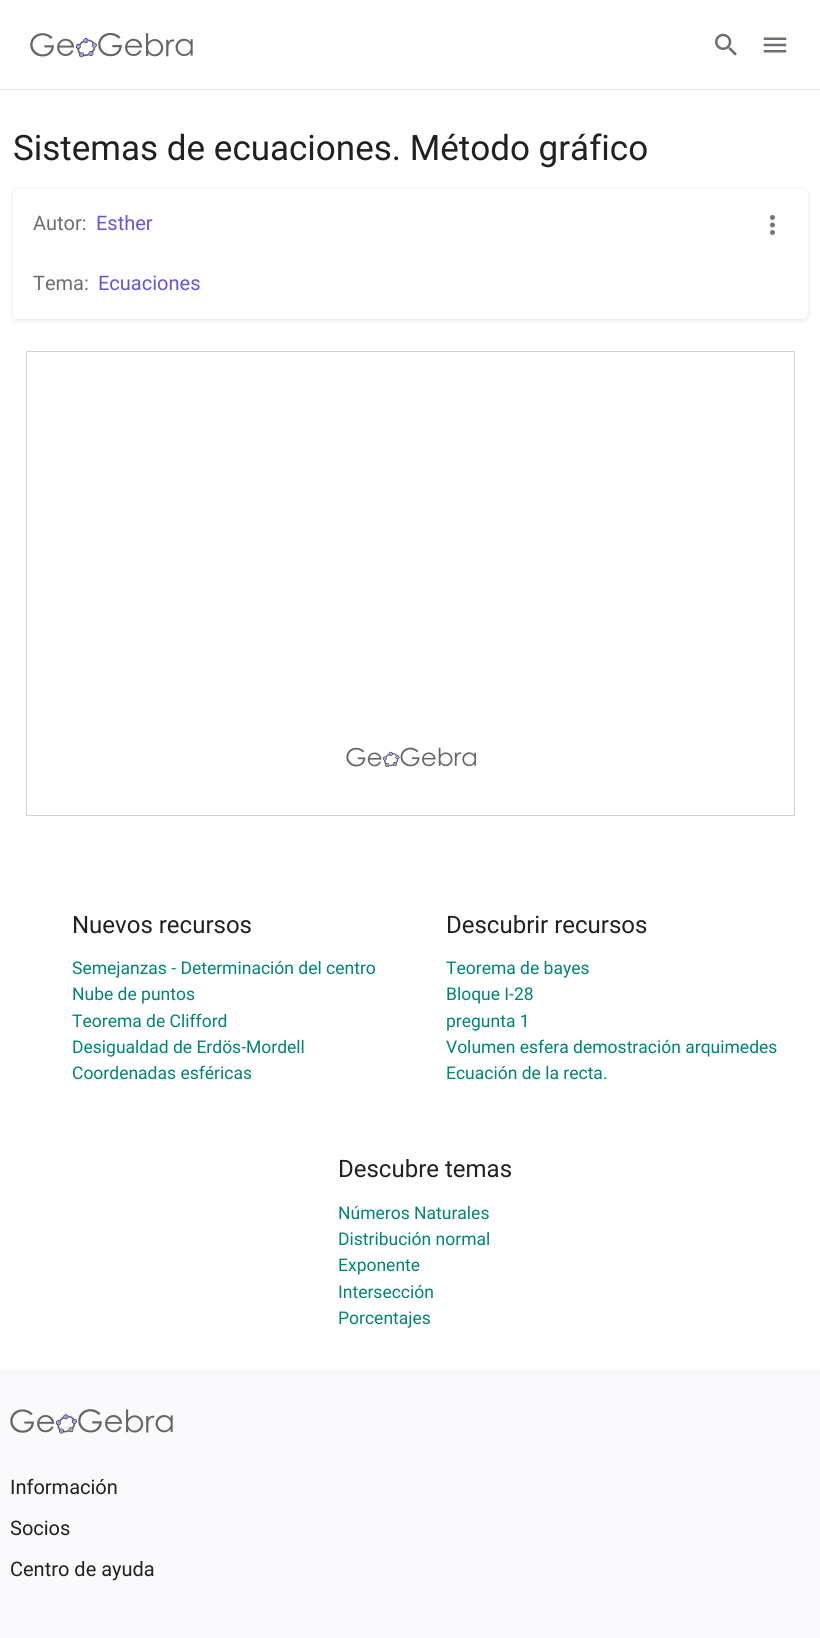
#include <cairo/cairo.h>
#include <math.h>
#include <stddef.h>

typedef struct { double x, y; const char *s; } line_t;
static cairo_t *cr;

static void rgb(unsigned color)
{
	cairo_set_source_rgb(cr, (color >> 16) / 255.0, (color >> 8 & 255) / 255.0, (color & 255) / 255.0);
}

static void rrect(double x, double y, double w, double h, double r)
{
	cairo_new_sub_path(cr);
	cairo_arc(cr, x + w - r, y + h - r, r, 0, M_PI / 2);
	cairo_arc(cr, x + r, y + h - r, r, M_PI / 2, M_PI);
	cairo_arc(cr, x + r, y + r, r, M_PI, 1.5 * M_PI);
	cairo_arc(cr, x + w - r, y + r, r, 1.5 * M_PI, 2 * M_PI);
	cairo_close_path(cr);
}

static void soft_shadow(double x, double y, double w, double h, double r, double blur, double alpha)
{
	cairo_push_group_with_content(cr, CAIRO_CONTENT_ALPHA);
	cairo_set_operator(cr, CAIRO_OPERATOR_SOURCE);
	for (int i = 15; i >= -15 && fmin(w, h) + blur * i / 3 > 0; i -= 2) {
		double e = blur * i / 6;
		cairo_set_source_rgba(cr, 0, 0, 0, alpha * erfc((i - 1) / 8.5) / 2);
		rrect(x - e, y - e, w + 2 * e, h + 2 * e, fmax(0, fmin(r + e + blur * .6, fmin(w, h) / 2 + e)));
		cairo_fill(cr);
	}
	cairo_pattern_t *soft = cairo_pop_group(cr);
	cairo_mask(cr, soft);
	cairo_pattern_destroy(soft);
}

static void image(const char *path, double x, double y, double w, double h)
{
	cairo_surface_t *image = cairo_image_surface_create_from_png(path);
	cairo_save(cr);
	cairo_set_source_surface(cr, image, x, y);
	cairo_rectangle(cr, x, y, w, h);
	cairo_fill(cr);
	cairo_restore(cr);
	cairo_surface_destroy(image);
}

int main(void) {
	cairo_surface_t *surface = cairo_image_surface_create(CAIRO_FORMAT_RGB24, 820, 1638);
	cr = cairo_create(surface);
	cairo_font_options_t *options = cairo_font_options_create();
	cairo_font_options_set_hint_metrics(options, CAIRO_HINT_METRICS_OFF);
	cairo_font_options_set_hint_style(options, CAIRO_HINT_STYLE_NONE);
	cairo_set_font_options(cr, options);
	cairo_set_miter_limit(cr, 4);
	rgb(0xffffff);
	cairo_paint(cr);
	rgb(0xe6e6eb);
	cairo_rectangle(cr, 0, 89, 820, 1);
	cairo_fill(cr);
	image("img/1.png", 30, 33, 163, 25);
	image("img/2.png", 715, 33, 22, 23);
	image("img/3.png", 763, 37, 24, 16);
	rgb(0x1c1c1f);
	soft_shadow(13, 190, 795, 130, 5, 2.5, 0.14);
	rgb(0xffffff);
	rrect(13, 189, 795, 130, 5);
	cairo_fill(cr);
	image("img/4.png", 770, 215, 5, 20);
	image("img/5.png", 346, 747, 130, 21);
	cairo_rectangle(cr, 26.5, 351.5, 768, 464);
	rgb(0xd3d3d3);
	cairo_set_line_width(cr, 1);
	cairo_stroke(cr);
	rgb(0xfafafc);
	cairo_rectangle(cr, 0, 1369, 820, 269);
	cairo_fill(cr);
	image("img/6.png", 10, 1409, 163, 25);
	cairo_select_font_face(cr, "Roboto", CAIRO_FONT_SLANT_NORMAL, CAIRO_FONT_WEIGHT_NORMAL);
	cairo_set_font_size(cr, 35);
	rgb(0x212121);
	cairo_move_to(cr, 13, 160);
	cairo_show_text(cr, "Sistemas de ecuaciones. Método gráfico");
	cairo_set_font_size(cr, 20);
	rgb(0x6e6d73);
	cairo_move_to(cr, 33, 230);
	cairo_show_text(cr, "Autor:");
	rgb(0x6557d2);
	cairo_move_to(cr, 96, 230);
	cairo_show_text(cr, "Esther");
	rgb(0x6e6d73);
	cairo_move_to(cr, 33, 290);
	cairo_show_text(cr, "Tema:");
	rgb(0x6557d2);
	cairo_move_to(cr, 98, 290);
	cairo_show_text(cr, "Ecuaciones");
	cairo_set_font_size(cr, 24);
	rgb(0x212121);
	cairo_move_to(cr, 72, 933);
	cairo_show_text(cr, "Nuevos recursos");
	cairo_set_font_size(cr, 17.5);
	rgb(0x008475);
	{
		static const line_t items[] = {
			{72, 974, "Semejanzas - Determinación del centro"},
			{72, 1000, "Nube de puntos"},
			{72, 1027, "Teorema de Clifford"},
			{72, 1053, "Desigualdad de Erdös-Mordell"},
			{72, 1079, "Coordenadas esféricas"},
		};
		for (size_t i = 0; i < sizeof items / sizeof *items; i++) {
			cairo_move_to(cr, items[i].x, items[i].y);
			cairo_show_text(cr, items[i].s);
		}
	}
	cairo_set_font_size(cr, 24);
	rgb(0x212121);
	cairo_move_to(cr, 446, 933);
	cairo_show_text(cr, "Descubrir recursos");
	cairo_set_font_size(cr, 17.5);
	rgb(0x008475);
	{
		static const line_t items[] = {
			{446, 974, "Teorema de bayes"},
			{446, 1000, "Bloque I-28"},
			{446, 1027, "pregunta 1"},
			{446, 1053, "Volumen esfera demostración arquimedes"},
			{446, 1079, "Ecuación de la recta."},
		};
		for (size_t i = 0; i < sizeof items / sizeof *items; i++) {
			cairo_move_to(cr, items[i].x, items[i].y);
			cairo_show_text(cr, items[i].s);
		}
	}
	cairo_set_font_size(cr, 24);
	rgb(0x212121);
	cairo_move_to(cr, 338, 1177);
	cairo_show_text(cr, "Descubre temas");
	cairo_set_font_size(cr, 17.5);
	rgb(0x008475);
	{
		static const line_t items[] = {
			{338, 1219, "Números Naturales"},
			{338, 1245, "Distribución normal"},
			{338, 1271, "Exponente"},
			{338, 1298, "Intersección"},
			{338, 1324, "Porcentajes"},
		};
		for (size_t i = 0; i < sizeof items / sizeof *items; i++) {
			cairo_move_to(cr, items[i].x, items[i].y);
			cairo_show_text(cr, items[i].s);
		}
	}
	cairo_set_font_size(cr, 20);
	rgb(0x212121);
	{
		static const line_t items[] = {
			{10, 1494, "Información"},
			{10, 1535, "Socios"},
			{10, 1576, "Centro de ayuda"},
		};
		for (size_t i = 0; i < sizeof items / sizeof *items; i++) {
			cairo_move_to(cr, items[i].x, items[i].y);
			cairo_show_text(cr, items[i].s);
		}
	}
	cairo_surface_write_to_png(surface, "page.png");
	cairo_font_options_destroy(options);
	cairo_destroy(cr);
	cairo_surface_destroy(surface);
	return 0;
}
